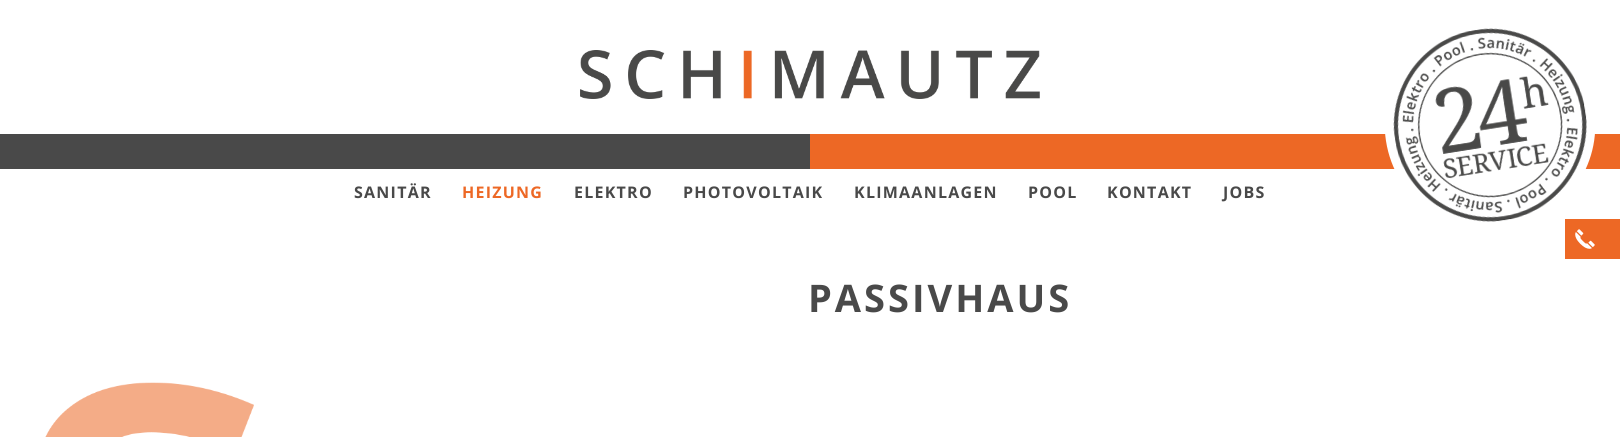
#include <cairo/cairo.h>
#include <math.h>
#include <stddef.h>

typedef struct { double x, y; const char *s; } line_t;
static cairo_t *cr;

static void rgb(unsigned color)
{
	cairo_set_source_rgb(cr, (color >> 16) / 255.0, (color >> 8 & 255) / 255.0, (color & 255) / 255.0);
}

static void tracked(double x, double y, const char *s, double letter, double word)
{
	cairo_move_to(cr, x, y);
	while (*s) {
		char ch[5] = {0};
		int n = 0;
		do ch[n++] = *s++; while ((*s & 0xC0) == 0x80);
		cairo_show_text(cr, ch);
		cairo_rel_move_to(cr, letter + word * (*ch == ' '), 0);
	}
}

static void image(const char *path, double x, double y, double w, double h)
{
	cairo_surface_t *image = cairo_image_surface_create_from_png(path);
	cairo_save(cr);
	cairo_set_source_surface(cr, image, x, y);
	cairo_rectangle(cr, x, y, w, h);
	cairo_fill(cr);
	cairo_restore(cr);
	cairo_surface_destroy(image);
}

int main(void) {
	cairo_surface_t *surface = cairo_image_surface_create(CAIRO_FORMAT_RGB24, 1620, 437);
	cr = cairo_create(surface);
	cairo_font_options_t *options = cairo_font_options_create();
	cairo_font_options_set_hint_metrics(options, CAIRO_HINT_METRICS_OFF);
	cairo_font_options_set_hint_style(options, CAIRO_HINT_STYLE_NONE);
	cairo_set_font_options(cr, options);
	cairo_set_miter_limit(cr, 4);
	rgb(0xffffff);
	cairo_paint(cr);
	image("img/1.png", 580, 50, 460, 49);
	rgb(0xed6825);
	cairo_rectangle(cr, 810, 134, 810, 35);
	cairo_fill(cr);
	cairo_rectangle(cr, 1565, 219, 55, 40);
	cairo_fill(cr);
	image("img/3.png", 1575, 229, 20, 20);
	rgb(0xffffff);
	cairo_new_path(cr);
	cairo_move_to(cr, 1474, 21);
	cairo_curve_to(cr, 1531, 12, 1585, 51, 1594, 109);
	cairo_curve_to(cr, 1603, 166, 1564, 220, 1506, 229);
	cairo_curve_to(cr, 1449, 238, 1395, 199, 1386, 141);
	cairo_curve_to(cr, 1377, 84, 1416, 30, 1474, 21);
	cairo_close_path(cr);
	cairo_fill(cr);
	image("img/2.png", 1393, 28, 194, 194);
	rgb(0x494949);
	cairo_rectangle(cr, 0, 134, 810, 35);
	cairo_fill(cr);
	image("img/4.png", 45, 382, 209, 55);
	cairo_select_font_face(cr, "Open Sans", CAIRO_FONT_SLANT_NORMAL, CAIRO_FONT_WEIGHT_BOLD);
	cairo_set_font_size(cr, 16);
	tracked(354, 198, "SANITÄR", 1.25, 0);
	rgb(0xed6825);
	tracked(462, 198, "HEIZUNG", 1.25, 0);
	rgb(0x494949);
	{
		static const line_t items[] = {
			{574, 198, "ELEKTRO"},
			{683, 198, "PHOTOVOLTAIK"},
			{854, 198, "KLIMAANLAGEN"},
			{1028, 198, "POOL"},
			{1107, 198, "KONTAKT"},
			{1223, 198, "JOBS"},
		};
		for (size_t i = 0; i < sizeof items / sizeof *items; i++) {
			tracked(items[i].x, items[i].y, items[i].s, 1.25, 0);
		}
	}
	cairo_set_font_size(cr, 38);
	tracked(808, 312, "PASSIVHAUS", 3, 0);
	cairo_surface_write_to_png(surface, "page.png");
	cairo_font_options_destroy(options);
	cairo_destroy(cr);
	cairo_surface_destroy(surface);
	return 0;
}
